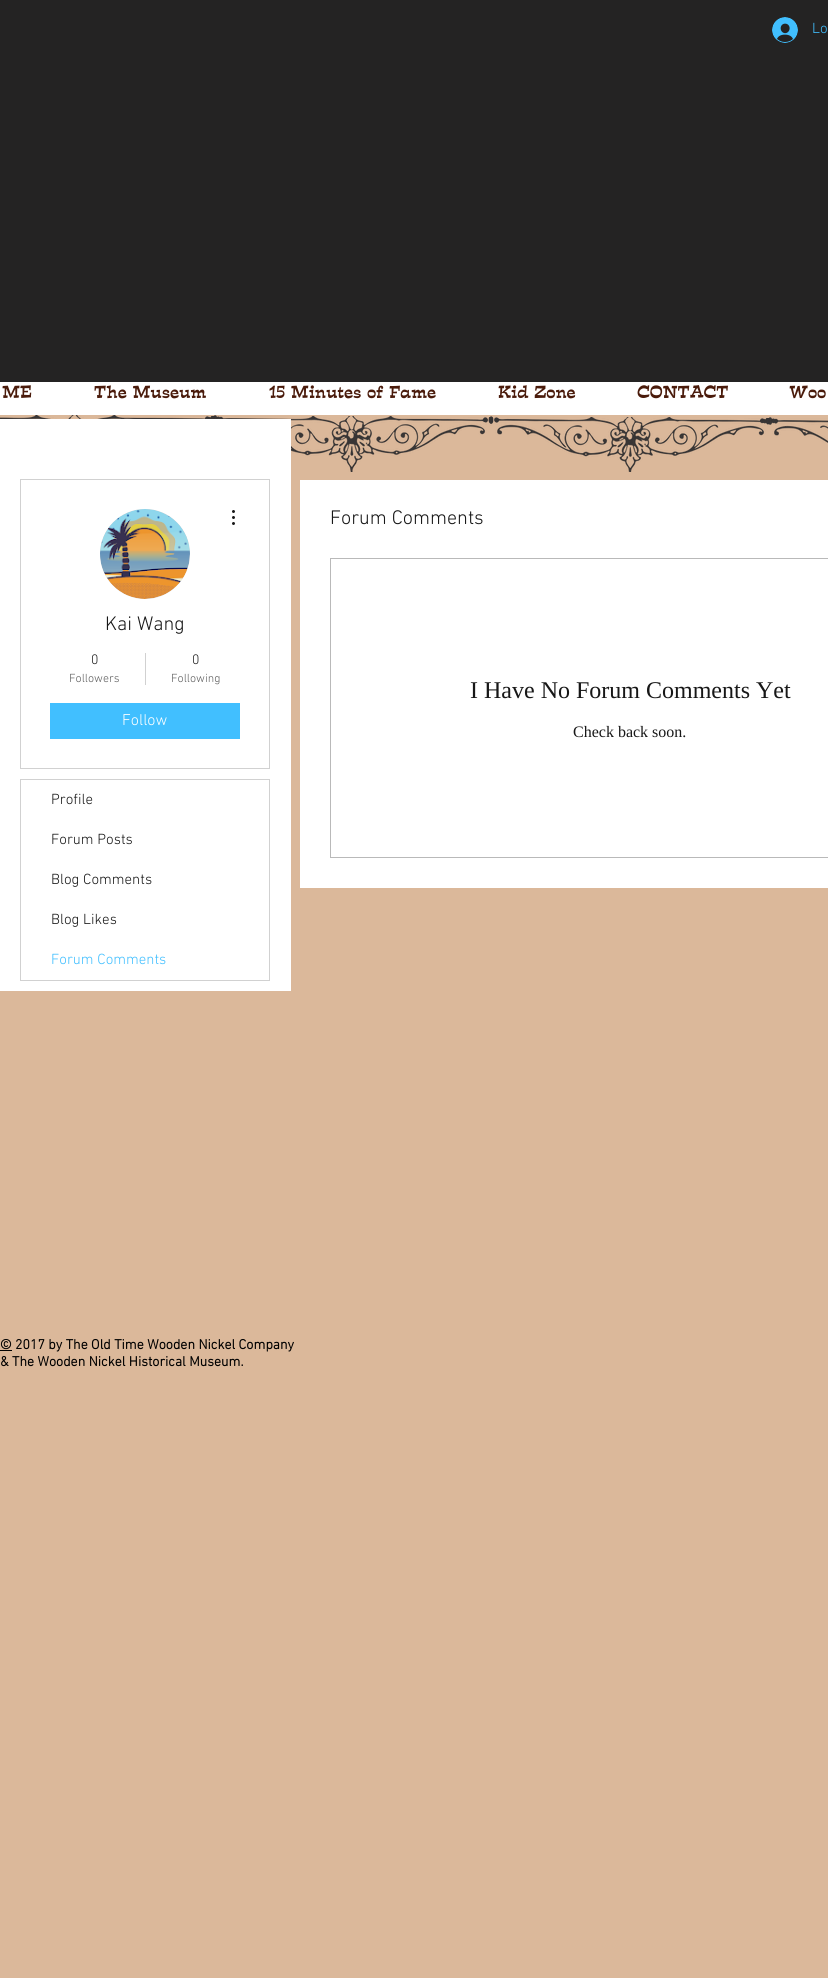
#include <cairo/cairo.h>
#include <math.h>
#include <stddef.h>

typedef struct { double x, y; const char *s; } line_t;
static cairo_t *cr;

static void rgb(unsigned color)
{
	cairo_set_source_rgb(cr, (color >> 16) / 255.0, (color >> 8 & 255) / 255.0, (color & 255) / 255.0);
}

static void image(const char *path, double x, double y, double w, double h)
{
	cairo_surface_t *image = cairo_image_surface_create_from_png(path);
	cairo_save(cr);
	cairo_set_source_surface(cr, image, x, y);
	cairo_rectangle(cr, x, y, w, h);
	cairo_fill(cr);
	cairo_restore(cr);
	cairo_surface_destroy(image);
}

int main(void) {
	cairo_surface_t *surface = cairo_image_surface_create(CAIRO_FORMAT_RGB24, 828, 1978);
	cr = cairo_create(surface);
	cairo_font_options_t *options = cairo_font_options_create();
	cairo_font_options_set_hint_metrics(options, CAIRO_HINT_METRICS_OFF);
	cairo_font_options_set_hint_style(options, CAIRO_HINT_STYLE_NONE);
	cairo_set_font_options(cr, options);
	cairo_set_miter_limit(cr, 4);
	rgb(0xdbb89a);
	cairo_paint(cr);
	rgb(0x242323);
	cairo_rectangle(cr, 0, 0, 828, 382);
	cairo_fill(cr);
	image("img/1.png", 772, 17, 26, 26);
	rgb(0xffffff);
	cairo_rectangle(cr, 0, 382, 828, 33);
	cairo_fill(cr);
	image("img/2.png", 0, 415, 223, 4);
	image("img/4.png", 483, 417, 295, 55);
	image("img/3.png", 205, 416, 294, 56);
	image("img/5.png", 760, 418, 68, 25);
	cairo_rectangle(cr, 0, 419, 291, 572);
	cairo_fill(cr);
	cairo_rectangle(cr, 20.5, 479.5, 249, 289);
	rgb(0xd1d1d1);
	cairo_set_line_width(cr, 1);
	cairo_stroke(cr);
	rgb(0xd8d8d8);
	cairo_arc(cr, 145, 554, 45, 0, 2 * M_PI);
	cairo_fill(cr);
	image("img/6.png", 100, 509, 90, 90);
	image("img/7.png", 232, 510, 3, 15);
	rgb(0xd1d1d1);
	cairo_rectangle(cr, 145, 653, 1, 32);
	cairo_fill(cr);
	rgb(0x41bfff);
	cairo_rectangle(cr, 50, 703, 190, 36);
	cairo_fill(cr);
	cairo_rectangle(cr, 20.5, 779.5, 249, 201);
	rgb(0xd1d1d1);
	cairo_stroke(cr);
	rgb(0xffffff);
	cairo_rectangle(cr, 300, 480, 528, 408);
	cairo_fill(cr);
	cairo_rectangle(cr, 330.5, 558.5, 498, 299);
	rgb(0xb9b9b9);
	cairo_stroke(cr);
	rgb(0x000000);
	cairo_rectangle(cr, 0, 1350, 12, 1);
	cairo_fill(cr);
	cairo_select_font_face(cr, "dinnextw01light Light", CAIRO_FONT_SLANT_NORMAL, CAIRO_FONT_WEIGHT_NORMAL);
	cairo_set_font_size(cr, 15);
	rgb(0x41bfff);
	cairo_move_to(cr, 812, 33);
	cairo_show_text(cr, "Lo");
	cairo_select_font_face(cr, "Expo", CAIRO_FONT_SLANT_NORMAL, CAIRO_FONT_WEIGHT_NORMAL);
	cairo_set_font_size(cr, 16);
	rgb(0x4a1b0b);
	{
		static const line_t items[] = {
			{2, 398, "ME"},
			{94, 398, "The Museum"},
			{269, 398, "15 Minutes of Fame"},
			{498, 398, "Kid Zone"},
			{637, 398, "CONTACT"},
			{789, 398, "Woo"},
		};
		for (size_t i = 0; i < sizeof items / sizeof *items; i++) {
			cairo_move_to(cr, items[i].x, items[i].y);
			cairo_show_text(cr, items[i].s);
		}
	}
	cairo_select_font_face(cr, "dinnextw01light Light", CAIRO_FONT_SLANT_NORMAL, CAIRO_FONT_WEIGHT_NORMAL);
	cairo_set_font_size(cr, 20);
	rgb(0x171717);
	cairo_move_to(cr, 105, 630);
	cairo_show_text(cr, "Kai Wang");
	cairo_set_font_size(cr, 14);
	cairo_move_to(cr, 91, 664);
	cairo_show_text(cr, "0");
	cairo_set_font_size(cr, 12);
	rgb(0x5d5d5d);
	cairo_move_to(cr, 69, 682);
	cairo_show_text(cr, "Followers");
	cairo_set_font_size(cr, 14);
	rgb(0x171717);
	cairo_move_to(cr, 192, 664);
	cairo_show_text(cr, "0");
	cairo_set_font_size(cr, 12);
	rgb(0x5d5d5d);
	cairo_move_to(cr, 171, 682);
	cairo_show_text(cr, "Following");
	cairo_set_font_size(cr, 16);
	rgb(0xffffff);
	cairo_move_to(cr, 122, 725);
	cairo_show_text(cr, "Follow");
	cairo_set_font_size(cr, 15);
	rgb(0x171717);
	{
		static const line_t items[] = {
			{51, 804, "Profile"},
			{51, 844, "Forum Posts"},
			{51, 884, "Blog Comments"},
			{51, 924, "Blog Likes"},
		};
		for (size_t i = 0; i < sizeof items / sizeof *items; i++) {
			cairo_move_to(cr, items[i].x, items[i].y);
			cairo_show_text(cr, items[i].s);
		}
	}
	rgb(0x41bfff);
	cairo_move_to(cr, 51, 964);
	cairo_show_text(cr, "Forum Comments");
	cairo_set_font_size(cr, 20);
	rgb(0x171717);
	cairo_move_to(cr, 330, 524);
	cairo_show_text(cr, "Forum Comments");
	cairo_select_font_face(cr, "Liberation Serif", CAIRO_FONT_SLANT_NORMAL, CAIRO_FONT_WEIGHT_NORMAL);
	cairo_set_font_size(cr, 24);
	cairo_move_to(cr, 470, 698);
	cairo_show_text(cr, "I Have No Forum Comments Yet");
	cairo_set_font_size(cr, 16);
	cairo_move_to(cr, 573, 737);
	cairo_show_text(cr, "Check back soon.");
	cairo_select_font_face(cr, "dinnextw01light", CAIRO_FONT_SLANT_NORMAL, CAIRO_FONT_WEIGHT_BOLD);
	cairo_set_font_size(cr, 14);
	rgb(0x000000);
	cairo_move_to(cr, 0, 1349);
	cairo_show_text(cr, "© 2017 by The Old Time Wooden Nickel Company");
	cairo_move_to(cr, 0, 1366);
	cairo_show_text(cr, "& The Wooden Nickel Historical Museum.");
	cairo_surface_write_to_png(surface, "page.png");
	cairo_font_options_destroy(options);
	cairo_destroy(cr);
	cairo_surface_destroy(surface);
	return 0;
}
